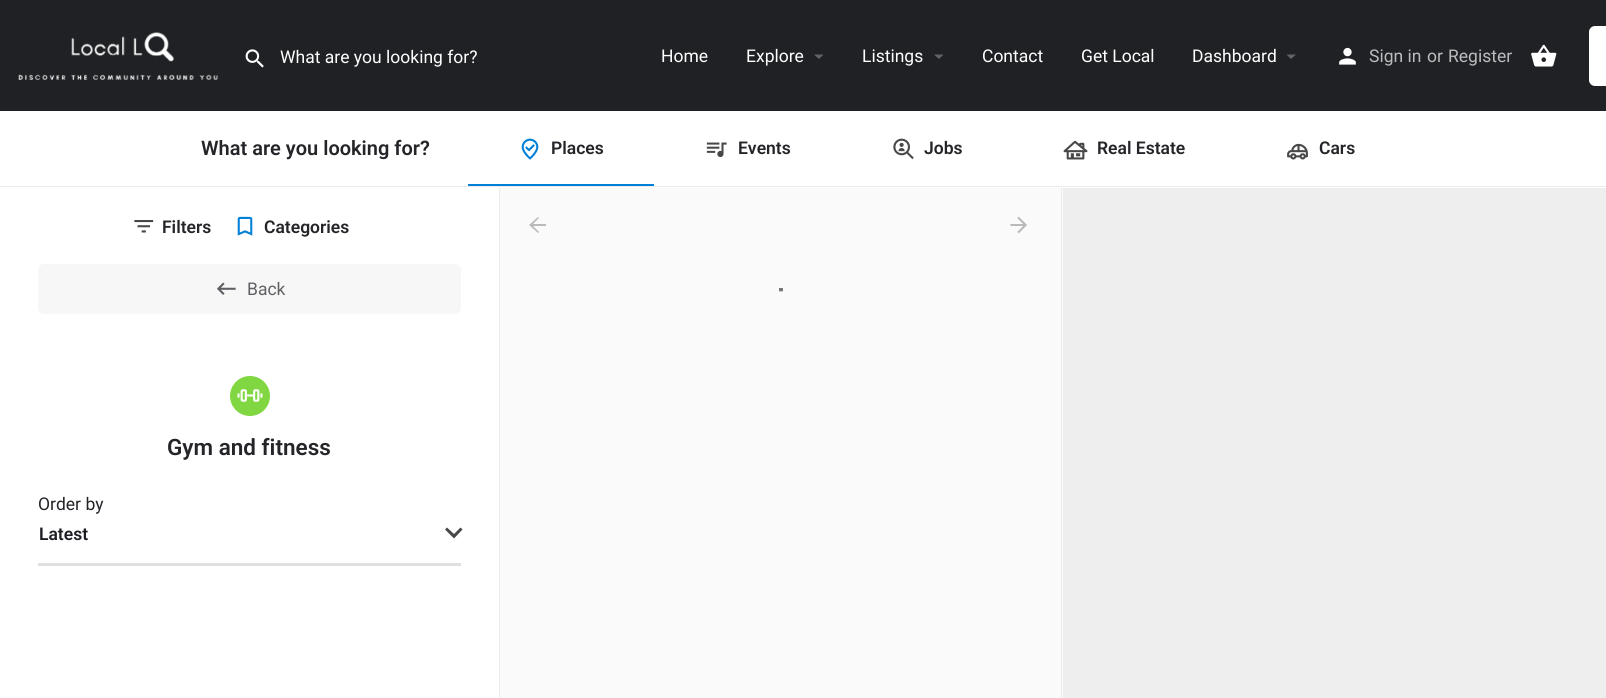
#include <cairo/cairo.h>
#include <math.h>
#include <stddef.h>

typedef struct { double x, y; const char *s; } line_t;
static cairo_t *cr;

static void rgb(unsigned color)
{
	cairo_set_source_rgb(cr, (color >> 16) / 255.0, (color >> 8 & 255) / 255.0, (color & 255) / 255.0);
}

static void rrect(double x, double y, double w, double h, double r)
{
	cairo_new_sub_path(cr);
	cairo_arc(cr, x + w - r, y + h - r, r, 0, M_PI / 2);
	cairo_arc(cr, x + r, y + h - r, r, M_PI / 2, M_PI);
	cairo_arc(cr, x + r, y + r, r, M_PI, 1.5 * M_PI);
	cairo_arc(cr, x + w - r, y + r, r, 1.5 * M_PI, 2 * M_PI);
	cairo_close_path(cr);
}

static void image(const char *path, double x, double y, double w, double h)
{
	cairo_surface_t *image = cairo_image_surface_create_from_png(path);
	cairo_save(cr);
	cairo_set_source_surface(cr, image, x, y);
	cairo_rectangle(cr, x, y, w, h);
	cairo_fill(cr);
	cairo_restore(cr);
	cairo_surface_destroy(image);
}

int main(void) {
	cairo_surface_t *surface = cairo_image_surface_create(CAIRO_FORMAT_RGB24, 1606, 698);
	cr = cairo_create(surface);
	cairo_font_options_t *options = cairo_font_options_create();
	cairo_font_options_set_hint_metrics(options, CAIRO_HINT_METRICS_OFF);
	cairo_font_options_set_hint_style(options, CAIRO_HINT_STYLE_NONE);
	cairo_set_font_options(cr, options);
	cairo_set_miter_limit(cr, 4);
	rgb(0xffffff);
	cairo_paint(cr);
	rgb(0x202125);
	cairo_rectangle(cr, 0, 0, 1606, 111);
	cairo_fill(cr);
	image("img/1.png", 18, 32, 200, 48);
	image("img/2.png", 245, 49, 19, 19);
	rgb(0x636466);
	cairo_new_path(cr);
	cairo_move_to(cr, 814, 54.5);
	cairo_line_to(cr, 823.5, 54.5);
	cairo_line_to(cr, 819, 59);
	cairo_close_path(cr);
	cairo_fill(cr);
	cairo_new_path(cr);
	cairo_move_to(cr, 934, 54.5);
	cairo_line_to(cr, 943.5, 54.5);
	cairo_line_to(cr, 939, 59);
	cairo_close_path(cr);
	cairo_fill(cr);
	cairo_new_path(cr);
	cairo_move_to(cr, 1286.5, 54.5);
	cairo_line_to(cr, 1296, 54.5);
	cairo_line_to(cr, 1291, 59);
	cairo_close_path(cr);
	cairo_fill(cr);
	image("img/3.png", 1339, 47, 17, 18);
	image("img/4.png", 1531, 44, 26, 23);
	rgb(0xffffff);
	rrect(1589, 26, 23, 60, 6);
	cairo_fill(cr);
	rgb(0xebebeb);
	cairo_rectangle(cr, 0, 186, 1606, 1);
	cairo_fill(cr);
	image("img/5.png", 521, 138, 18, 22);
	rgb(0x0080d7);
	cairo_rectangle(cr, 468, 184, 186, 2);
	cairo_fill(cr);
	image("img/6.png", 706, 142, 21, 16);
	image("img/7.png", 893, 138, 21, 22);
	image("img/8.png", 1063, 140, 25, 20);
	image("img/9.png", 1287, 143, 21, 17);
	rgb(0xebebeb);
	cairo_rectangle(cr, 499, 188, 1, 510);
	cairo_fill(cr);
	image("img/10.png", 134, 220, 20, 13);
	image("img/11.png", 237, 216, 16, 20);
	rgb(0xf6f7f6);
	rrect(38, 264, 423, 50, 6);
	cairo_fill(cr);
	image("img/12.png", 217, 282, 19, 13);
	rgb(0x81d742);
	cairo_arc(cr, 250, 396, 20, 0, 2 * M_PI);
	cairo_fill(cr);
	image("img/13.png", 237, 389, 26, 13);
	rgb(0xe0e0e0);
	cairo_rectangle(cr, 38, 563, 423, 3);
	cairo_fill(cr);
	rgb(0x484848);
	cairo_new_path(cr);
	cairo_move_to(cr, 447, 527.5);
	cairo_line_to(cr, 454, 534);
	cairo_line_to(cr, 460.5, 527.5);
	cairo_line_to(cr, 462.5, 529.5);
	cairo_line_to(cr, 454, 538.5);
	cairo_line_to(cr, 445, 529.5);
	cairo_close_path(cr);
	cairo_fill(cr);
	rgb(0xfafafa);
	cairo_rectangle(cr, 500, 188, 563, 510);
	cairo_fill(cr);
	rgb(0xebebeb);
	cairo_rectangle(cr, 1061, 188, 1, 510);
	cairo_fill(cr);
	rgb(0xbababb);
	cairo_new_path(cr);
	cairo_move_to(cr, 546, 224);
	cairo_line_to(cr, 546, 226);
	cairo_line_to(cr, 533, 226);
	cairo_line_to(cr, 539, 232);
	cairo_line_to(cr, 538, 233);
	cairo_line_to(cr, 529, 225);
	cairo_line_to(cr, 538, 217);
	cairo_line_to(cr, 539, 218);
	cairo_line_to(cr, 533, 224);
	cairo_close_path(cr);
	cairo_move_to(cr, 550, 238);
	cairo_line_to(cr, 550, 238);
	cairo_close_path(cr);
	cairo_move_to(cr, 575, 238);
	cairo_line_to(cr, 575, 238);
	cairo_close_path(cr);
	cairo_move_to(cr, 600, 238);
	cairo_line_to(cr, 600, 238);
	cairo_close_path(cr);
	cairo_move_to(cr, 625, 238);
	cairo_line_to(cr, 625, 238);
	cairo_close_path(cr);
	cairo_fill(cr);
	image("img/14.png", 1010, 216, 17, 18);
	cairo_save(cr);
	cairo_rectangle(cr, 764, 288, 17, 35);
	cairo_clip(cr);
	cairo_new_path(cr);
	cairo_move_to(cr, 779.5, 289.5);
	cairo_curve_to(cr, 782.5, 289, 785.5, 290, 788, 291.5);
	cairo_curve_to(cr, 801.5, 298.5, 797, 319, 782, 320.5);
	rgb(0x777777);
	cairo_set_line_width(cr, 3.7);
	cairo_stroke(cr);
	cairo_restore(cr);
	cairo_save(cr);
	cairo_rectangle(cr, 779, 288, 4, 35);
	cairo_clip(cr);
	cairo_new_path(cr);
	cairo_move_to(cr, 770, 316);
	cairo_curve_to(cr, 757.5, 303, 774, 281.5, 789, 292);
	cairo_curve_to(cr, 792.5, 294.5, 794.5, 298, 795.5, 302);
	cairo_curve_to(cr, 796.5, 307, 795, 312.5, 791, 316);
	rgb(0x777777);
	cairo_set_line_width(cr, 3.8);
	cairo_stroke(cr);
	cairo_restore(cr);
	cairo_save(cr);
	cairo_rectangle(cr, 781, 288, 18, 35);
	cairo_clip(cr);
	cairo_new_path(cr);
	cairo_move_to(cr, 779.5, 320.5);
	cairo_curve_to(cr, 764, 319, 759.5, 298.5, 773, 291.5);
	cairo_curve_to(cr, 776, 290, 779, 289, 782, 289.5);
	rgb(0x777777);
	cairo_set_line_width(cr, 3.7);
	cairo_stroke(cr);
	cairo_restore(cr);
	rgb(0xeeeeee);
	cairo_rectangle(cr, 1063, 188, 543, 510);
	cairo_fill(cr);
	cairo_select_font_face(cr, "Roboto", CAIRO_FONT_SLANT_NORMAL, CAIRO_FONT_WEIGHT_NORMAL);
	cairo_set_font_size(cr, 17.5);
	rgb(0xffffff);
	{
		static const line_t items[] = {
			{280, 63, "What are you looking for?"},
			{661, 62, "Home"},
			{746, 62, "Explore"},
			{862, 62, "Listings"},
			{982, 62, "Contact"},
			{1081, 62, "Get Local"},
			{1192, 62, "Dashboard"},
		};
		for (size_t i = 0; i < sizeof items / sizeof *items; i++) {
			cairo_move_to(cr, items[i].x, items[i].y);
			cairo_show_text(cr, items[i].s);
		}
	}
	rgb(0xbcbcbe);
	{
		static const line_t items[] = {
			{1369, 62, "Sign in"},
			{1427, 62, "or"},
			{1448, 62, "Register"},
		};
		for (size_t i = 0; i < sizeof items / sizeof *items; i++) {
			cairo_move_to(cr, items[i].x, items[i].y);
			cairo_show_text(cr, items[i].s);
		}
	}
	cairo_select_font_face(cr, "Roboto SemiBold", CAIRO_FONT_SLANT_NORMAL, CAIRO_FONT_WEIGHT_NORMAL);
	cairo_set_font_size(cr, 20);
	rgb(0x242429);
	cairo_move_to(cr, 201, 155);
	cairo_show_text(cr, "What are you looking for?");
	cairo_set_font_size(cr, 17.5);
	{
		static const line_t items[] = {
			{551, 154, "Places"},
			{738, 154, "Events"},
			{924, 154, "Jobs"},
			{1097, 154, "Real Estate"},
			{1319, 154, "Cars"},
			{162, 233, "Filters"},
			{264, 233, "Categories"},
		};
		for (size_t i = 0; i < sizeof items / sizeof *items; i++) {
			cairo_move_to(cr, items[i].x, items[i].y);
			cairo_show_text(cr, items[i].s);
		}
	}
	cairo_select_font_face(cr, "Roboto", CAIRO_FONT_SLANT_NORMAL, CAIRO_FONT_WEIGHT_NORMAL);
	rgb(0x616165);
	cairo_move_to(cr, 247, 295);
	cairo_show_text(cr, "Back");
	cairo_select_font_face(cr, "Roboto SemiBold", CAIRO_FONT_SLANT_NORMAL, CAIRO_FONT_WEIGHT_NORMAL);
	cairo_set_font_size(cr, 22.5);
	rgb(0x242429);
	cairo_move_to(cr, 167, 455);
	cairo_show_text(cr, "Gym and fitness");
	cairo_select_font_face(cr, "Roboto", CAIRO_FONT_SLANT_NORMAL, CAIRO_FONT_WEIGHT_NORMAL);
	cairo_set_font_size(cr, 17.5);
	cairo_move_to(cr, 38, 510);
	cairo_show_text(cr, "Order by");
	cairo_select_font_face(cr, "Roboto SemiBold", CAIRO_FONT_SLANT_NORMAL, CAIRO_FONT_WEIGHT_NORMAL);
	rgb(0x1d1d23);
	cairo_move_to(cr, 39, 540);
	cairo_show_text(cr, "Latest");
	cairo_surface_write_to_png(surface, "page.png");
	cairo_font_options_destroy(options);
	cairo_destroy(cr);
	cairo_surface_destroy(surface);
	return 0;
}
